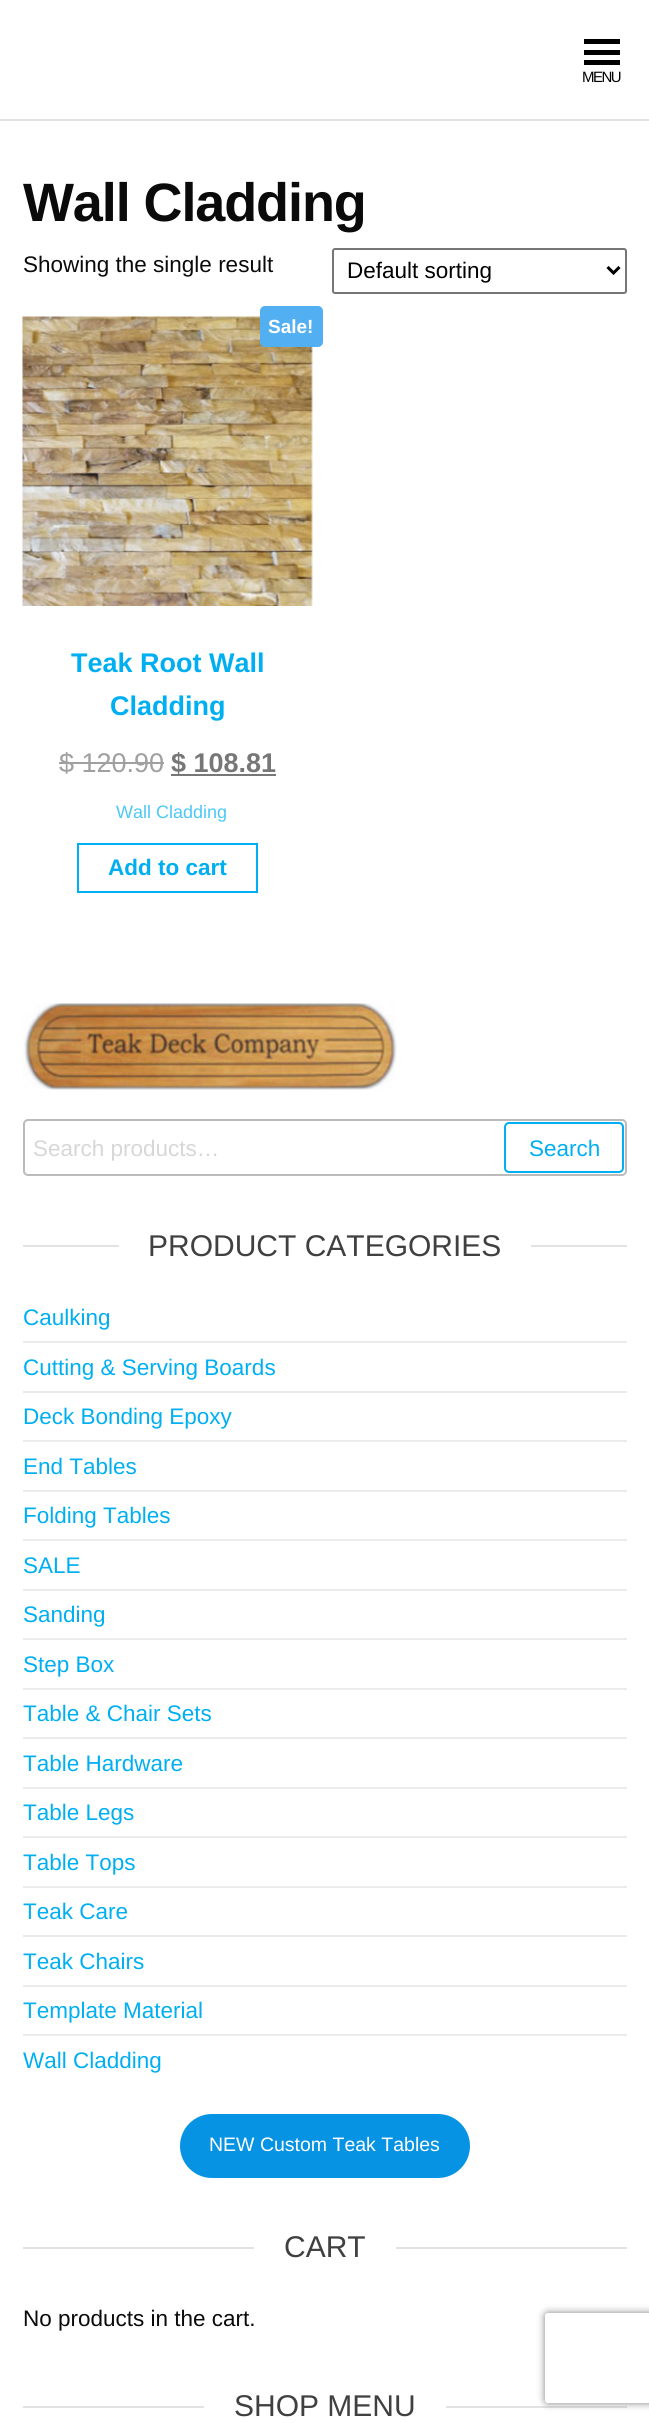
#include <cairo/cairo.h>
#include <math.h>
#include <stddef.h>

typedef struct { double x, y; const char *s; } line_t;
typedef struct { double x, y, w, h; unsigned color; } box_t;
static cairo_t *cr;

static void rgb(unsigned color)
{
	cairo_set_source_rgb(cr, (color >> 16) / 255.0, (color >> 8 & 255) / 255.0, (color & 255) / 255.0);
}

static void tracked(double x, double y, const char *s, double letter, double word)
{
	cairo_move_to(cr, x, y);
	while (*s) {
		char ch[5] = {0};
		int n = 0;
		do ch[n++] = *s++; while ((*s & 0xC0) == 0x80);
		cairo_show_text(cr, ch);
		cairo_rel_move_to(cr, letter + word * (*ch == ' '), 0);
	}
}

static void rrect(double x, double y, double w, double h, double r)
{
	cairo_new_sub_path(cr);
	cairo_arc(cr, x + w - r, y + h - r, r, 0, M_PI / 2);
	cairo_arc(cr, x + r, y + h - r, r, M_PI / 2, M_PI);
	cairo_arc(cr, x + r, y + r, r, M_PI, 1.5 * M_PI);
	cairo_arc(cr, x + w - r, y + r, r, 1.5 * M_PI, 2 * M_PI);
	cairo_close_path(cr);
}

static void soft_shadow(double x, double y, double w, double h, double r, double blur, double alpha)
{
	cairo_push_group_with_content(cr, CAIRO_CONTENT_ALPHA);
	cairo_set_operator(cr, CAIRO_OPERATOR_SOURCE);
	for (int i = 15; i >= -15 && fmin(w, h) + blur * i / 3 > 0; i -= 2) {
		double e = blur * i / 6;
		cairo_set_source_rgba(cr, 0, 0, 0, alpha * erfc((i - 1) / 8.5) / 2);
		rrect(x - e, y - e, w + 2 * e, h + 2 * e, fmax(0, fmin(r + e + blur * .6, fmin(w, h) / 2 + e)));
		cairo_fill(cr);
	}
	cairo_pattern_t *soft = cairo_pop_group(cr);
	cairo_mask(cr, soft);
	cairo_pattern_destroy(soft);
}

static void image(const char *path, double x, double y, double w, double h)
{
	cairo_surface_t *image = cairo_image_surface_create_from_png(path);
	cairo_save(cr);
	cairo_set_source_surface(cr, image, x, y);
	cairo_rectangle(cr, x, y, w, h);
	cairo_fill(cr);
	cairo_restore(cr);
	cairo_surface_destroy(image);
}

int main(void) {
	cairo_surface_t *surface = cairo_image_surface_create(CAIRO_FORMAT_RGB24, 649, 2423);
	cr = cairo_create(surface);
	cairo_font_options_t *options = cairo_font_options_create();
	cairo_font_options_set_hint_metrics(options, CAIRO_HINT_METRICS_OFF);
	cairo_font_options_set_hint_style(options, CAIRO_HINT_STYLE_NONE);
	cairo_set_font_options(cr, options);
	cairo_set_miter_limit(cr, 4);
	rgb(0xffffff);
	cairo_paint(cr);
	{
		static const box_t items[] = {
			{0, 119, 649, 2, 0xe2e2e2},
			{584, 39, 36, 5, 0x000000},
			{584, 50, 36, 5, 0x000000},
			{584, 60, 36, 5, 0x000000},
		};
		for (size_t i = 0; i < sizeof items / sizeof *items; i++) {
			rgb(items[i].color);
			cairo_rectangle(cr, items[i].x, items[i].y, items[i].w, items[i].h);
			cairo_fill(cr);
		}
	}
	rrect(333, 249, 293, 44, 2);
	rgb(0x767676);
	cairo_stroke(cr);
	cairo_new_path(cr);
	cairo_move_to(cr, 607.5, 267);
	cairo_line_to(cr, 613.5, 273);
	cairo_line_to(cr, 619.5, 267);
	rgb(0x000000);
	cairo_set_line_width(cr, 3);
	cairo_stroke(cr);
	image("img/1.png", 22, 316, 291, 290);
	rgb(0x52aff2);
	rrect(260, 306, 63, 41, 5);
	cairo_fill(cr);
	rgb(0xa0a0a0);
	cairo_rectangle(cr, 59, 762, 105, 2);
	cairo_fill(cr);
	rgb(0x777777);
	cairo_rectangle(cr, 171, 774, 105, 2);
	cairo_fill(cr);
	cairo_rectangle(cr, 78, 844, 179, 48);
	rgb(0x00aff2);
	cairo_set_line_width(cr, 2);
	cairo_stroke(cr);
	image("img/2.png", 22, 1003, 375, 87);
	rrect(24, 1120, 602, 55, 4);
	rgb(0xbbbbbb);
	cairo_stroke(cr);
	rrect(505, 1123, 118, 49, 4);
	rgb(0x00aff2);
	cairo_stroke(cr);
	{
		static const box_t items[] = {
			{23, 1245, 604, 2, 0xe2e2e2},
			{119, 1245, 412, 2, 0xffffff},
			{23, 1341, 604, 2, 0xebebeb},
			{23, 1391, 604, 2, 0xebebeb},
			{23, 1440, 604, 2, 0xebebeb},
			{23, 1490, 604, 2, 0xebebeb},
			{23, 1539, 604, 2, 0xebebeb},
			{23, 1589, 604, 2, 0xebebeb},
			{23, 1638, 604, 2, 0xebebeb},
			{23, 1688, 604, 2, 0xebebeb},
			{23, 1737, 604, 2, 0xebebeb},
			{23, 1787, 604, 2, 0xebebeb},
			{23, 1836, 604, 2, 0xebebeb},
			{23, 1886, 604, 2, 0xebebeb},
			{23, 1935, 604, 2, 0xebebeb},
			{23, 1985, 604, 2, 0xebebeb},
			{23, 2034, 604, 2, 0xebebeb},
		};
		for (size_t i = 0; i < sizeof items / sizeof *items; i++) {
			rgb(items[i].color);
			cairo_rectangle(cr, items[i].x, items[i].y, items[i].w, items[i].h);
			cairo_fill(cr);
		}
	}
	rgb(0x0693e3);
	rrect(180, 2114, 290, 64, 32);
	cairo_fill(cr);
	{
		static const box_t items[] = {
			{23, 2247, 604, 2, 0xe2e2e2},
			{254, 2247, 142, 2, 0xffffff},
			{23, 2406, 604, 2, 0xe2e2e2},
			{204, 2406, 242, 2, 0xffffff},
		};
		for (size_t i = 0; i < sizeof items / sizeof *items; i++) {
			rgb(items[i].color);
			cairo_rectangle(cr, items[i].x, items[i].y, items[i].w, items[i].h);
			cairo_fill(cr);
		}
	}
	cairo_save(cr);
	cairo_set_fill_rule(cr, CAIRO_FILL_RULE_EVEN_ODD);
	cairo_new_path(cr);
	cairo_move_to(cr, 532, 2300);
	cairo_line_to(cr, 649, 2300);
	cairo_line_to(cr, 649, 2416);
	cairo_line_to(cr, 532, 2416);
	cairo_close_path(cr);
	cairo_move_to(cr, 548, 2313);
	cairo_line_to(cr, 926, 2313);
	cairo_curve_to(cr, 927.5, 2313, 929, 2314.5, 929, 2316);
	cairo_line_to(cr, 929, 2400);
	cairo_curve_to(cr, 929, 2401.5, 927.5, 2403, 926, 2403);
	cairo_line_to(cr, 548, 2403);
	cairo_curve_to(cr, 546.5, 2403, 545, 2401.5, 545, 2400);
	cairo_line_to(cr, 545, 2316);
	cairo_curve_to(cr, 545, 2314.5, 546.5, 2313, 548, 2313);
	cairo_close_path(cr);
	cairo_clip(cr);
	rgb(0x808080);
	soft_shadow(545, 2313, 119, 90, 3, 4, 1);
	cairo_restore(cr);
	cairo_select_font_face(cr, "Liberation Sans", CAIRO_FONT_SLANT_NORMAL, CAIRO_FONT_WEIGHT_NORMAL);
	cairo_set_font_size(cr, 15);
	rgb(0x000000);
	tracked(582, 82, "MENU", -1.5, 0);
	cairo_select_font_face(cr, "Liberation Sans", CAIRO_FONT_SLANT_NORMAL, CAIRO_FONT_WEIGHT_BOLD);
	cairo_set_font_size(cr, 54);
	rgb(0x0a0a0a);
	tracked(23, 221, "Wall Cladding", -1.1, 0);
	cairo_select_font_face(cr, "Liberation Sans", CAIRO_FONT_SLANT_NORMAL, CAIRO_FONT_WEIGHT_NORMAL);
	cairo_set_font_size(cr, 22.5);
	cairo_move_to(cr, 23, 272);
	cairo_show_text(cr, "Showing the single result");
	rgb(0x000000);
	cairo_move_to(cr, 347, 278);
	cairo_show_text(cr, "Default sorting");
	cairo_select_font_face(cr, "Liberation Sans", CAIRO_FONT_SLANT_NORMAL, CAIRO_FONT_WEIGHT_BOLD);
	cairo_set_font_size(cr, 19);
	rgb(0xffffff);
	cairo_move_to(cr, 268, 333);
	cairo_show_text(cr, "Sale!");
	cairo_set_font_size(cr, 27);
	rgb(0x00aff2);
	cairo_move_to(cr, 71, 672);
	cairo_show_text(cr, "Teak Root Wall");
	cairo_move_to(cr, 110, 715);
	cairo_show_text(cr, "Cladding");
	cairo_select_font_face(cr, "Liberation Sans", CAIRO_FONT_SLANT_NORMAL, CAIRO_FONT_WEIGHT_NORMAL);
	rgb(0xa0a0a0);
	cairo_move_to(cr, 59, 772);
	cairo_show_text(cr, "$ 120.90");
	cairo_select_font_face(cr, "Liberation Sans", CAIRO_FONT_SLANT_NORMAL, CAIRO_FONT_WEIGHT_BOLD);
	rgb(0x777777);
	cairo_move_to(cr, 171, 772);
	cairo_show_text(cr, "$ 108.81");
	cairo_select_font_face(cr, "Liberation Sans", CAIRO_FONT_SLANT_NORMAL, CAIRO_FONT_WEIGHT_NORMAL);
	cairo_set_font_size(cr, 18);
	rgb(0x4dc7f6);
	cairo_move_to(cr, 116, 818);
	cairo_show_text(cr, "Wall Cladding");
	cairo_select_font_face(cr, "Liberation Sans", CAIRO_FONT_SLANT_NORMAL, CAIRO_FONT_WEIGHT_BOLD);
	cairo_set_font_size(cr, 22.5);
	rgb(0x00aff2);
	cairo_move_to(cr, 108, 875);
	cairo_show_text(cr, "Add to cart");
	cairo_select_font_face(cr, "Liberation Sans", CAIRO_FONT_SLANT_NORMAL, CAIRO_FONT_WEIGHT_NORMAL);
	rgb(0xd7d7d7);
	cairo_move_to(cr, 33, 1156);
	cairo_show_text(cr, "Search products…");
	rgb(0x00aff2);
	cairo_move_to(cr, 529, 1156);
	cairo_show_text(cr, "Search");
	cairo_set_font_size(cr, 30);
	rgb(0x404040);
	cairo_move_to(cr, 148, 1256);
	cairo_show_text(cr, "PRODUCT CATEGORIES");
	cairo_set_font_size(cr, 22.5);
	rgb(0x00aff2);
	{
		static const line_t items[] = {
			{23, 1325, "Caulking"},
			{23, 1375, "Cutting & Serving Boards"},
			{23, 1424, "Deck Bonding Epoxy"},
			{23, 1474, "End Tables"},
			{23, 1523, "Folding Tables"},
			{23, 1573, "SALE"},
			{23, 1622, "Sanding"},
			{23, 1672, "Step Box"},
			{23, 1721, "Table & Chair Sets"},
			{23, 1771, "Table Hardware"},
			{23, 1820, "Table Legs"},
			{23, 1870, "Table Tops"},
			{23, 1919, "Teak Care"},
			{23, 1969, "Teak Chairs"},
			{23, 2018, "Template Material"},
			{23, 2068, "Wall Cladding"},
		};
		for (size_t i = 0; i < sizeof items / sizeof *items; i++) {
			cairo_move_to(cr, items[i].x, items[i].y);
			cairo_show_text(cr, items[i].s);
		}
	}
	cairo_set_font_size(cr, 19.5);
	rgb(0xffffff);
	cairo_move_to(cr, 209, 2151);
	cairo_show_text(cr, "NEW Custom Teak Tables");
	cairo_set_font_size(cr, 30);
	rgb(0x404040);
	cairo_move_to(cr, 284, 2257);
	cairo_show_text(cr, "CART");
	cairo_set_font_size(cr, 22.5);
	rgb(0x0a0a0a);
	cairo_move_to(cr, 23, 2326);
	cairo_show_text(cr, "No products in the cart.");
	cairo_set_font_size(cr, 30);
	rgb(0x404040);
	cairo_move_to(cr, 234, 2416);
	cairo_show_text(cr, "SHOP MENU");
	cairo_surface_write_to_png(surface, "page.png");
	cairo_font_options_destroy(options);
	cairo_destroy(cr);
	cairo_surface_destroy(surface);
	return 0;
}
